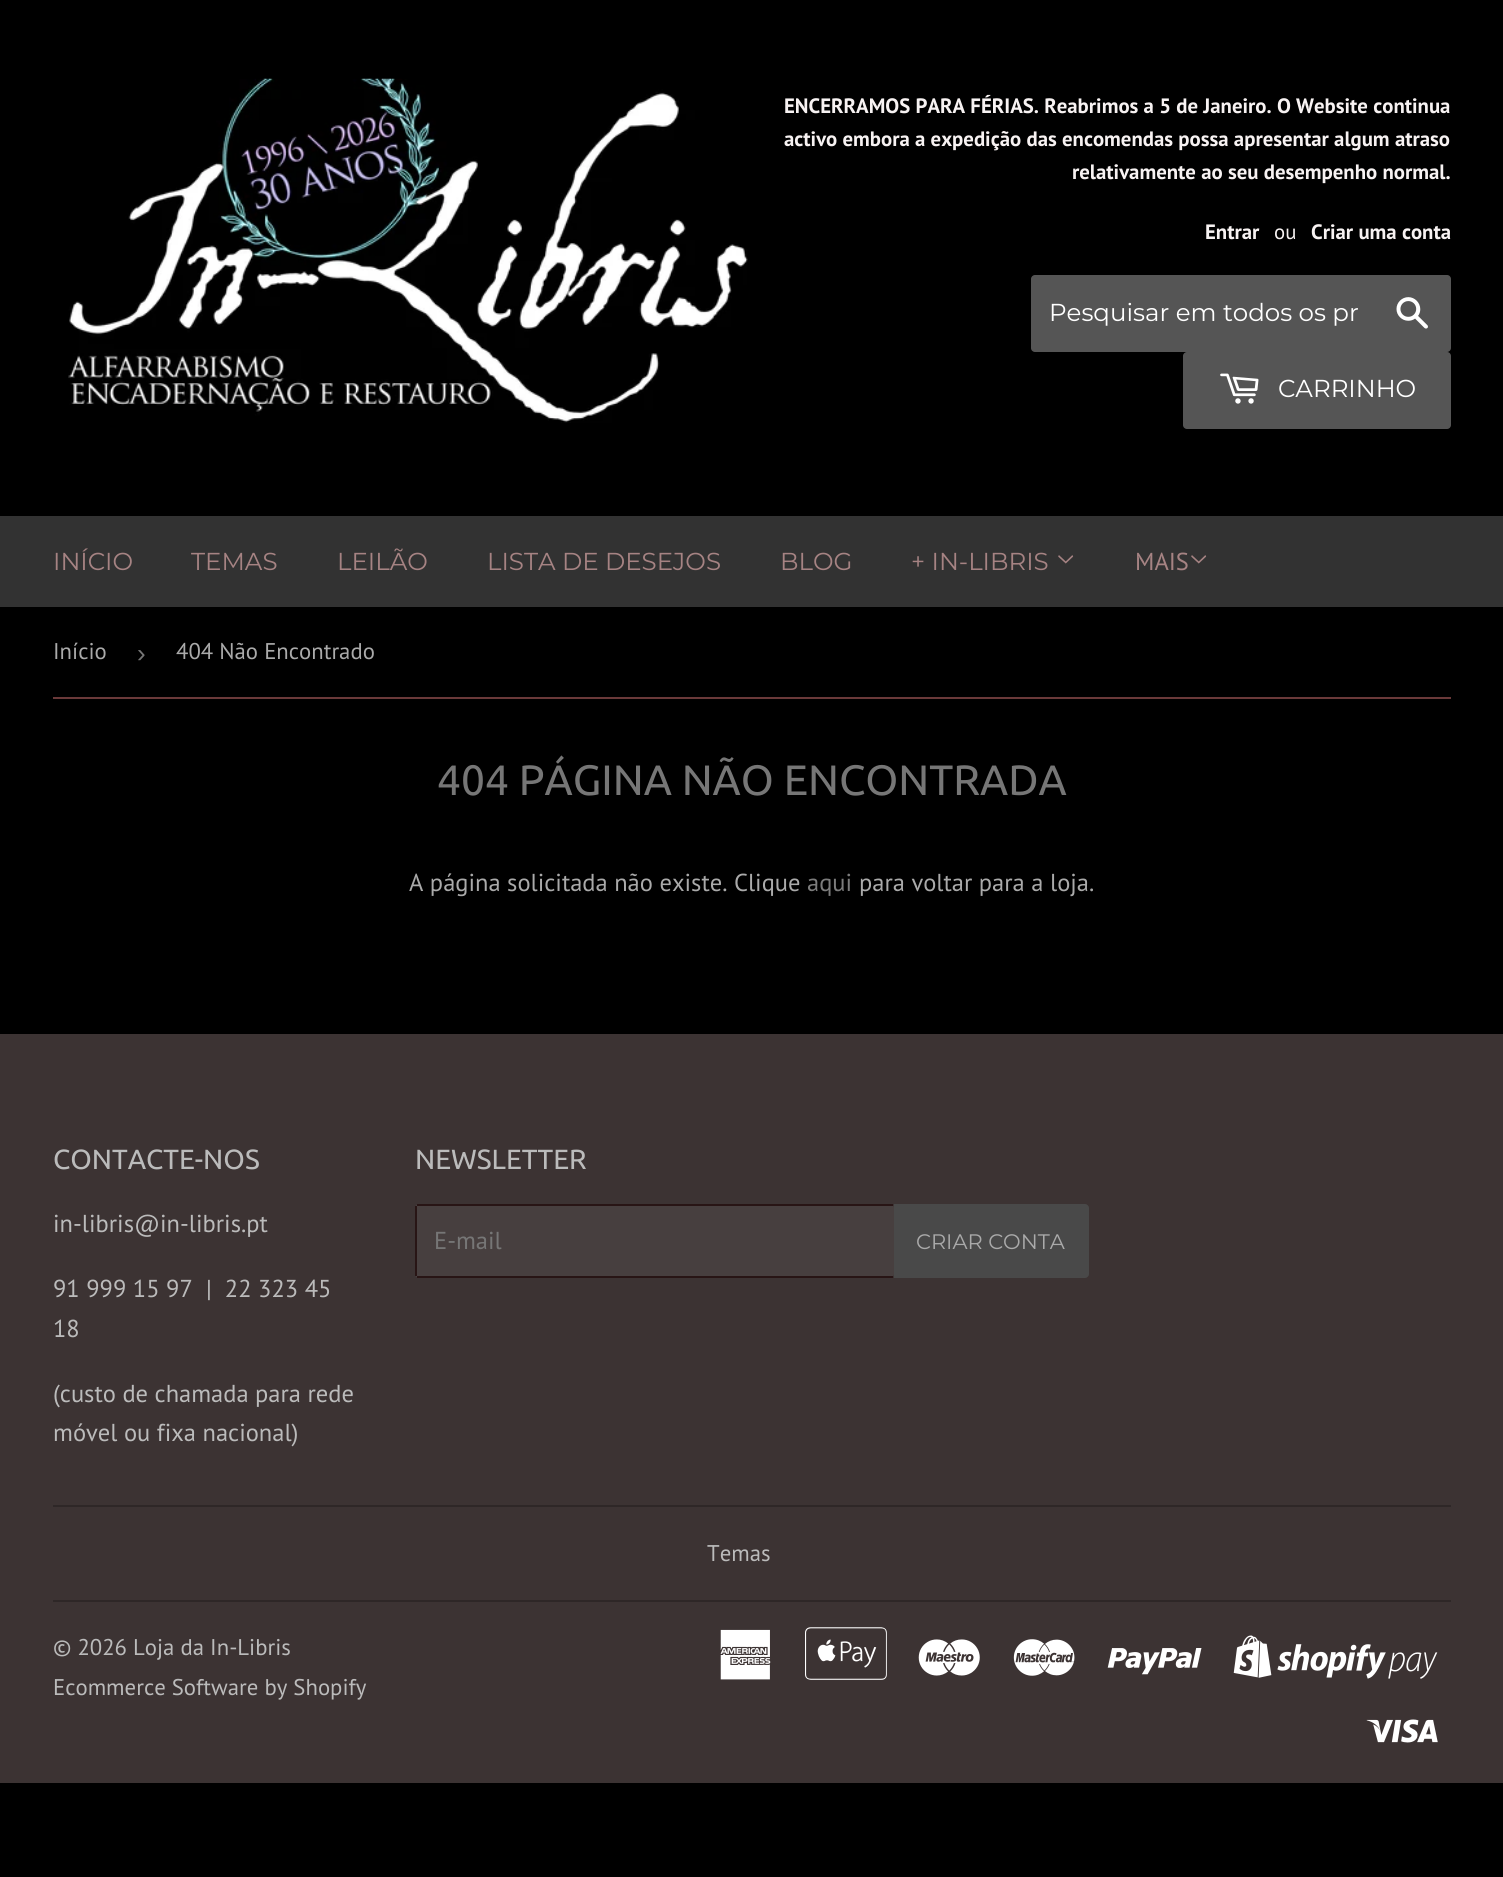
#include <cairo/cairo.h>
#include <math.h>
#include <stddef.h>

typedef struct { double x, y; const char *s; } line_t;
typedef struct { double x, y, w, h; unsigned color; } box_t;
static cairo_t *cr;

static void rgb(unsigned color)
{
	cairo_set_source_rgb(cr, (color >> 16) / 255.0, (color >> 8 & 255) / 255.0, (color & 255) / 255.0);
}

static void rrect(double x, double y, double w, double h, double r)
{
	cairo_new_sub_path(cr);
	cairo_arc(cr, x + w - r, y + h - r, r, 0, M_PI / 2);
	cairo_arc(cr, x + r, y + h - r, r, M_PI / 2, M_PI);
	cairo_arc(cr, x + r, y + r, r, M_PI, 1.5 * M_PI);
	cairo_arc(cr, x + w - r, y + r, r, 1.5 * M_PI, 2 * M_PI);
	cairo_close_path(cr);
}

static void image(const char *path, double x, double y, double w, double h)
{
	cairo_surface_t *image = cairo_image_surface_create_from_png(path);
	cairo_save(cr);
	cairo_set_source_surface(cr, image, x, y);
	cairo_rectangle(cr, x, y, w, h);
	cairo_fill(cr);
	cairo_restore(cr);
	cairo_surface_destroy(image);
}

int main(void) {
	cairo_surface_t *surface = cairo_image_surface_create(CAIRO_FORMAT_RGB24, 1503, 1877);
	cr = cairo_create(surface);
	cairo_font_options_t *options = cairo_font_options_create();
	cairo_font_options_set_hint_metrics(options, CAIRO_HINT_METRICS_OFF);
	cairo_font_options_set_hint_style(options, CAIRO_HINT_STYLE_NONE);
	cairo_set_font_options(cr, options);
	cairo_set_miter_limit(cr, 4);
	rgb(0x000000);
	cairo_paint(cr);
	image("img/1.png", 68, 78, 680, 345);
	rgb(0x555555);
	rrect(1031, 275, 420, 77, 4);
	cairo_fill(cr);
	image("img/2.png", 1396, 297, 32, 32);
	rrect(1183, 352, 268, 77, 4);
	cairo_fill(cr);
	image("img/3.png", 1220, 373, 39, 31);
	rgb(0x323232);
	cairo_rectangle(cr, 0, 516, 1503, 91);
	cairo_fill(cr);
	image("img/4.png", 1058, 555, 16, 9);
	image("img/4.png", 1191, 555, 16, 9);
	rgb(0x6a3939);
	cairo_rectangle(cr, 53, 697, 1398, 2);
	cairo_fill(cr);
	rgb(0x3c3333);
	cairo_rectangle(cr, 0, 1034, 1503, 749);
	cairo_fill(cr);
	rgb(0x473f3f);
	rrect(415, 1204, 479, 74, 4);
	cairo_fill(cr);
	{
		static const box_t items[] = {
			{417, 1204, 476, 2, 0x281515},
			{417, 1276, 476, 2, 0x281515},
			{415, 1206, 2, 70, 0x281515},
		};
		for (size_t i = 0; i < sizeof items / sizeof *items; i++) {
			rgb(items[i].color);
			cairo_rectangle(cr, items[i].x, items[i].y, items[i].w, items[i].h);
			cairo_fill(cr);
		}
	}
	rgb(0x494949);
	cairo_new_path(cr);
	cairo_move_to(cr, 894, 1204);
	cairo_line_to(cr, 1085, 1204);
	cairo_curve_to(cr, 1087, 1204, 1089, 1206, 1089, 1208);
	cairo_line_to(cr, 1089, 1274);
	cairo_curve_to(cr, 1089, 1276, 1087, 1278, 1085, 1278);
	cairo_line_to(cr, 894, 1278);
	cairo_close_path(cr);
	cairo_fill(cr);
	rgb(0x2e2727);
	cairo_rectangle(cr, 53, 1505, 1398, 2);
	cairo_fill(cr);
	cairo_rectangle(cr, 53, 1600, 1398, 2);
	cairo_fill(cr);
	image("img/5.png", 720, 1629, 51, 51);
	image("img/6.png", 805, 1627, 82, 53);
	image("img/7.png", 918, 1639, 62, 37);
	image("img/8.png", 1013, 1639, 62, 37);
	image("img/9.png", 1107, 1648, 95, 27);
	image("img/10.png", 1233, 1635, 205, 44);
	image("img/11.png", 1366, 1719, 72, 24);
	cairo_select_font_face(cr, "PT Sans", CAIRO_FONT_SLANT_NORMAL, CAIRO_FONT_WEIGHT_BOLD);
	cairo_set_font_size(cr, 20.8);
	rgb(0xf7f2f2);
	{
		static const line_t items[] = {
			{784, 113, "ENCERRAMOS PARA FÉRIAS. Reabrimos a 5 de Janeiro. O Website continua"},
			{784, 146, "activo embora a expedição das encomendas possa apresentar algum atraso"},
			{1072, 179, "relativamente ao seu desempenho normal."},
			{1205, 239, "Entrar"},
		};
		for (size_t i = 0; i < sizeof items / sizeof *items; i++) {
			cairo_move_to(cr, items[i].x, items[i].y);
			cairo_show_text(cr, items[i].s);
		}
	}
	cairo_select_font_face(cr, "PT Sans", CAIRO_FONT_SLANT_NORMAL, CAIRO_FONT_WEIGHT_NORMAL);
	cairo_move_to(cr, 1274, 239);
	cairo_show_text(cr, "ou");
	cairo_select_font_face(cr, "PT Sans", CAIRO_FONT_SLANT_NORMAL, CAIRO_FONT_WEIGHT_BOLD);
	cairo_move_to(cr, 1311, 239);
	cairo_show_text(cr, "Criar uma conta");
	cairo_select_font_face(cr, "Montserrat Thin", CAIRO_FONT_SLANT_NORMAL, CAIRO_FONT_WEIGHT_NORMAL);
	cairo_set_font_size(cr, 24.5);
	rgb(0xffffff);
	cairo_move_to(cr, 1049, 321);
	cairo_show_text(cr, "Pesquisar em todos os pr");
	cairo_move_to(cr, 1278, 397);
	cairo_show_text(cr, "CARRINHO");
	rgb(0xa68383);
	{
		static const line_t items[] = {
			{53, 570, "INÍCIO"},
			{191, 570, "TEMAS"},
			{337, 570, "LEILÃO"},
			{487, 570, "LISTA DE DESEJOS"},
			{780, 570, "BLOG"},
			{911, 570, "+ IN-LIBRIS"},
		};
		for (size_t i = 0; i < sizeof items / sizeof *items; i++) {
			cairo_move_to(cr, items[i].x, items[i].y);
			cairo_show_text(cr, items[i].s);
		}
	}
	cairo_select_font_face(cr, "PT Sans", CAIRO_FONT_SLANT_NORMAL, CAIRO_FONT_WEIGHT_NORMAL);
	cairo_move_to(cr, 1135, 570);
	cairo_show_text(cr, "MAIS");
	cairo_set_font_size(cr, 22.75);
	rgb(0xaaaaaa);
	cairo_move_to(cr, 53, 659);
	cairo_show_text(cr, "Início");
	cairo_select_font_face(cr, "Liberation Sans", CAIRO_FONT_SLANT_NORMAL, CAIRO_FONT_WEIGHT_NORMAL);
	cairo_set_font_size(cr, 26);
	rgb(0x767676);
	cairo_move_to(cr, 137, 662);
	cairo_show_text(cr, "›");
	cairo_select_font_face(cr, "PT Sans", CAIRO_FONT_SLANT_NORMAL, CAIRO_FONT_WEIGHT_NORMAL);
	cairo_set_font_size(cr, 22.75);
	rgb(0xaaaaaa);
	cairo_move_to(cr, 176, 659);
	cairo_show_text(cr, "404 Não Encontrado");
	cairo_select_font_face(cr, "Ubuntu", CAIRO_FONT_SLANT_NORMAL, CAIRO_FONT_WEIGHT_NORMAL);
	cairo_set_font_size(cr, 42.5);
	rgb(0x767676);
	cairo_move_to(cr, 437, 795);
	cairo_show_text(cr, "404 PÁGINA NÃO ENCONTRADA");
	cairo_select_font_face(cr, "PT Sans", CAIRO_FONT_SLANT_NORMAL, CAIRO_FONT_WEIGHT_NORMAL);
	cairo_set_font_size(cr, 24.5);
	rgb(0xaaaaaa);
	cairo_move_to(cr, 409, 891);
	cairo_show_text(cr, "A página solicitada não existe. Clique");
	rgb(0x7c7c7c);
	cairo_move_to(cr, 807, 891);
	cairo_show_text(cr, "aqui");
	rgb(0xaaaaaa);
	cairo_move_to(cr, 859, 891);
	cairo_show_text(cr, "para voltar para a loja.");
	cairo_select_font_face(cr, "Ubuntu", CAIRO_FONT_SLANT_NORMAL, CAIRO_FONT_WEIGHT_NORMAL);
	cairo_set_font_size(cr, 27.75);
	rgb(0xbbbbbb);
	cairo_move_to(cr, 53, 1169);
	cairo_show_text(cr, "CONTACTE-NOS");
	cairo_select_font_face(cr, "PT Sans", CAIRO_FONT_SLANT_NORMAL, CAIRO_FONT_WEIGHT_NORMAL);
	cairo_set_font_size(cr, 24.5);
	{
		static const line_t items[] = {
			{53, 1232, "in-libris@in-libris.pt"},
			{53, 1297, "91 999 15 97  |  22 323 45"},
			{53, 1337, "18"},
			{53, 1402, "(custo de chamada para rede"},
			{53, 1441, "móvel ou fixa nacional)"},
		};
		for (size_t i = 0; i < sizeof items / sizeof *items; i++) {
			cairo_move_to(cr, items[i].x, items[i].y);
			cairo_show_text(cr, items[i].s);
		}
	}
	cairo_select_font_face(cr, "Ubuntu", CAIRO_FONT_SLANT_NORMAL, CAIRO_FONT_WEIGHT_NORMAL);
	cairo_set_font_size(cr, 27.75);
	cairo_move_to(cr, 415, 1169);
	cairo_show_text(cr, "NEWSLETTER");
	cairo_select_font_face(cr, "PT Sans", CAIRO_FONT_SLANT_NORMAL, CAIRO_FONT_WEIGHT_NORMAL);
	cairo_set_font_size(cr, 24.5);
	rgb(0x767676);
	cairo_move_to(cr, 434, 1249);
	cairo_show_text(cr, "E-mail");
	cairo_select_font_face(cr, "Montserrat Thin", CAIRO_FONT_SLANT_NORMAL, CAIRO_FONT_WEIGHT_NORMAL);
	cairo_set_font_size(cr, 21);
	rgb(0xaaaaaa);
	cairo_move_to(cr, 916, 1249);
	cairo_show_text(cr, "CRIAR CONTA");
	cairo_select_font_face(cr, "PT Sans", CAIRO_FONT_SLANT_NORMAL, CAIRO_FONT_WEIGHT_NORMAL);
	cairo_set_font_size(cr, 22.75);
	rgb(0xbbbbbb);
	{
		static const line_t items[] = {
			{707, 1561, "Temas"},
			{53, 1655, "© 2026 Loja da In-Libris"},
			{53, 1695, "Ecommerce Software by Shopify"},
		};
		for (size_t i = 0; i < sizeof items / sizeof *items; i++) {
			cairo_move_to(cr, items[i].x, items[i].y);
			cairo_show_text(cr, items[i].s);
		}
	}
	cairo_surface_write_to_png(surface, "page.png");
	cairo_font_options_destroy(options);
	cairo_destroy(cr);
	cairo_surface_destroy(surface);
	return 0;
}
